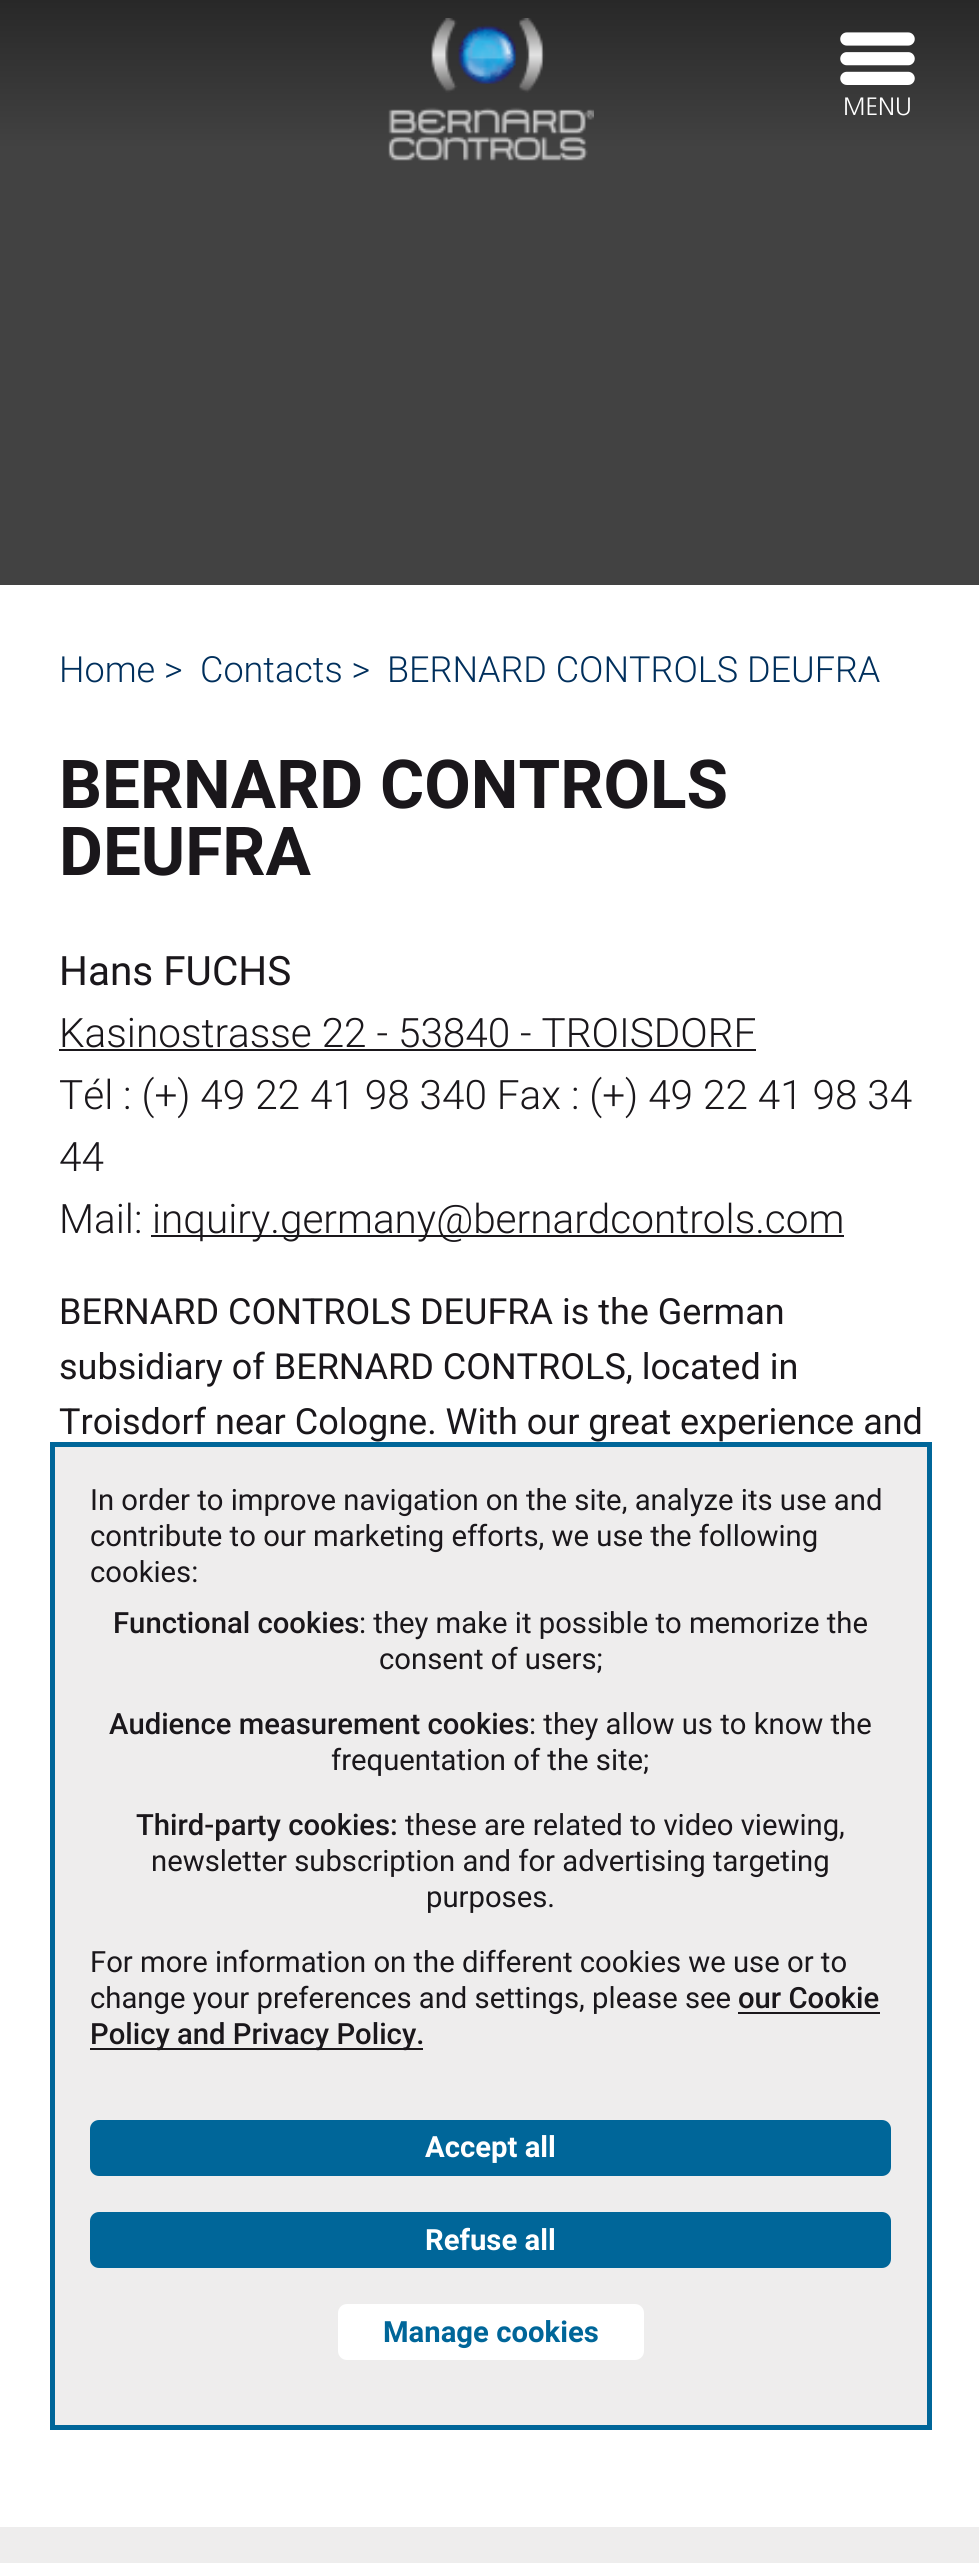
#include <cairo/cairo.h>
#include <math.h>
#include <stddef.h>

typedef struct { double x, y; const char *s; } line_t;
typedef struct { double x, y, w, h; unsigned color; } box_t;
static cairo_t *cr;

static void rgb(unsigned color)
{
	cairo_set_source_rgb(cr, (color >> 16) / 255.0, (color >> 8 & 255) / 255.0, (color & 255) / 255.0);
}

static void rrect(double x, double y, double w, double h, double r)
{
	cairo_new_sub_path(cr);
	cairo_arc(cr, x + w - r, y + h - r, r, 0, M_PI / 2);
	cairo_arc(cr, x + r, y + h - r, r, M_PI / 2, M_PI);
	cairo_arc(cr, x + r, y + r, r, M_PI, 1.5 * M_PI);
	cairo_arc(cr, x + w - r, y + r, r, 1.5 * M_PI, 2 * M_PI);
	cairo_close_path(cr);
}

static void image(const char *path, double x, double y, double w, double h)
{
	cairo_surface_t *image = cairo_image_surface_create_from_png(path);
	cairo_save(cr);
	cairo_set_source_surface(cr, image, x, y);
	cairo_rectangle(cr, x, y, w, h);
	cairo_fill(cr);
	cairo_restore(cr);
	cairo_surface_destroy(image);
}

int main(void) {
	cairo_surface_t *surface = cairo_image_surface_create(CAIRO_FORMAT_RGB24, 979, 2563);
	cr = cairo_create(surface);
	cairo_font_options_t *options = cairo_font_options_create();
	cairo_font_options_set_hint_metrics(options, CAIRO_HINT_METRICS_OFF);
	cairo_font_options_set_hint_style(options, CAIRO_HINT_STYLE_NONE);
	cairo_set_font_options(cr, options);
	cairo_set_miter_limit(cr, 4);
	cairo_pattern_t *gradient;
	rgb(0xeeeded);
	cairo_paint(cr);
	gradient = cairo_pattern_create_linear(491, 0, 491, 149);
	cairo_pattern_add_color_stop_rgba(gradient, 0, 0.157, 0.157, 0.157, 1);
	cairo_pattern_add_color_stop_rgba(gradient, 1, 0.259, 0.259, 0.259, 1);
	cairo_set_source(cr, gradient);
	cairo_pattern_destroy(gradient);
	cairo_rectangle(cr, 0, 0, 979, 149);
	cairo_fill(cr);
	rgb(0x424242);
	cairo_rectangle(cr, 0, 149, 979, 436);
	cairo_fill(cr);
	image("img/1.png", 388, 18, 206, 143);
	image("img/2.png", 840, 32, 75, 84);
	{
		static const box_t items[] = {
			{0, 585, 979, 1942, 0xffffff},
			{59, 1049, 697, 2, 0x1a171b},
			{151, 1235, 693, 2, 0x1a171b},
		};
		for (size_t i = 0; i < sizeof items / sizeof *items; i++) {
			rgb(items[i].color);
			cairo_rectangle(cr, items[i].x, items[i].y, items[i].w, items[i].h);
			cairo_fill(cr);
		}
	}
	rgb(0xeeeded);
	cairo_rectangle(cr, 52.5, 1444.5, 877, 983);
	cairo_fill_preserve(cr);
	rgb(0x006699);
	cairo_set_line_width(cr, 5);
	cairo_stroke(cr);
	rgb(0x1a171b);
	cairo_rectangle(cr, 738, 2012, 142, 2);
	cairo_fill(cr);
	cairo_rectangle(cr, 90, 2048, 333, 2);
	cairo_fill(cr);
	rgb(0x006699);
	rrect(90, 2120, 801, 56, 9);
	cairo_fill(cr);
	rrect(90, 2212, 801, 56, 9);
	cairo_fill(cr);
	rgb(0xffffff);
	rrect(338, 2304, 306, 56, 9);
	cairo_fill(cr);
	cairo_select_font_face(cr, "Roboto Light", CAIRO_FONT_SLANT_NORMAL, CAIRO_FONT_WEIGHT_NORMAL);
	cairo_set_font_size(cr, 36);
	rgb(0x002f5c);
	{
		static const line_t items[] = {
			{59, 682, "Home >"},
			{200, 682, "Contacts >"},
			{387, 682, "BERNARD CONTROLS DEUFRA"},
		};
		for (size_t i = 0; i < sizeof items / sizeof *items; i++) {
			cairo_move_to(cr, items[i].x, items[i].y);
			cairo_show_text(cr, items[i].s);
		}
	}
	cairo_select_font_face(cr, "Roboto", CAIRO_FONT_SLANT_NORMAL, CAIRO_FONT_WEIGHT_BOLD);
	cairo_set_font_size(cr, 67.5);
	rgb(0x1a171b);
	cairo_move_to(cr, 59, 808);
	cairo_show_text(cr, "BERNARD CONTROLS");
	cairo_move_to(cr, 59, 875);
	cairo_show_text(cr, "DEUFRA");
	cairo_select_font_face(cr, "Roboto", CAIRO_FONT_SLANT_NORMAL, CAIRO_FONT_WEIGHT_NORMAL);
	cairo_set_font_size(cr, 40.5);
	cairo_move_to(cr, 59, 985);
	cairo_show_text(cr, "Hans FUCHS");
	cairo_select_font_face(cr, "Roboto Light", CAIRO_FONT_SLANT_NORMAL, CAIRO_FONT_WEIGHT_NORMAL);
	{
		static const line_t items[] = {
			{59, 1047, "Kasinostrasse 22 - 53840 - TROISDORF"},
			{59, 1109, "Tél : (+) 49 22 41 98 340 Fax : (+) 49 22 41 98 34"},
			{59, 1171, "44"},
			{59, 1233, "Mail:"},
			{152, 1233, "inquiry.germany@bernardcontrols.com"},
		};
		for (size_t i = 0; i < sizeof items / sizeof *items; i++) {
			cairo_move_to(cr, items[i].x, items[i].y);
			cairo_show_text(cr, items[i].s);
		}
	}
	cairo_select_font_face(cr, "Roboto", CAIRO_FONT_SLANT_NORMAL, CAIRO_FONT_WEIGHT_NORMAL);
	cairo_set_font_size(cr, 36);
	{
		static const line_t items[] = {
			{59, 1324, "BERNARD CONTROLS DEUFRA is the German"},
			{59, 1379, "subsidiary of BERNARD CONTROLS, located in"},
			{59, 1434, "Troisdorf near Cologne. With our great experience and"},
		};
		for (size_t i = 0; i < sizeof items / sizeof *items; i++) {
			cairo_move_to(cr, items[i].x, items[i].y);
			cairo_show_text(cr, items[i].s);
		}
	}
	cairo_set_font_size(cr, 29.25);
	{
		static const line_t items[] = {
			{90, 1510, "In order to improve navigation on the site, analyze its use and"},
			{90, 1546, "contribute to our marketing efforts, we use the following"},
			{90, 1582, "cookies:"},
		};
		for (size_t i = 0; i < sizeof items / sizeof *items; i++) {
			cairo_move_to(cr, items[i].x, items[i].y);
			cairo_show_text(cr, items[i].s);
		}
	}
	cairo_select_font_face(cr, "Roboto Medium", CAIRO_FONT_SLANT_NORMAL, CAIRO_FONT_WEIGHT_NORMAL);
	cairo_move_to(cr, 113, 1633);
	cairo_show_text(cr, "Functional cookies");
	cairo_select_font_face(cr, "Roboto", CAIRO_FONT_SLANT_NORMAL, CAIRO_FONT_WEIGHT_NORMAL);
	cairo_move_to(cr, 359, 1633);
	cairo_show_text(cr, ": they make it possible to memorize the");
	cairo_move_to(cr, 379, 1669);
	cairo_show_text(cr, "consent of users;");
	cairo_select_font_face(cr, "Roboto Medium", CAIRO_FONT_SLANT_NORMAL, CAIRO_FONT_WEIGHT_NORMAL);
	cairo_move_to(cr, 109, 1734);
	cairo_show_text(cr, "Audience measurement cookies");
	cairo_select_font_face(cr, "Roboto", CAIRO_FONT_SLANT_NORMAL, CAIRO_FONT_WEIGHT_NORMAL);
	cairo_move_to(cr, 529, 1734);
	cairo_show_text(cr, ": they allow us to know the");
	cairo_move_to(cr, 331, 1770);
	cairo_show_text(cr, "frequentation of the site;");
	cairo_select_font_face(cr, "Roboto Medium", CAIRO_FONT_SLANT_NORMAL, CAIRO_FONT_WEIGHT_NORMAL);
	cairo_move_to(cr, 136, 1835);
	cairo_show_text(cr, "Third-party cookies:");
	cairo_select_font_face(cr, "Roboto", CAIRO_FONT_SLANT_NORMAL, CAIRO_FONT_WEIGHT_NORMAL);
	{
		static const line_t items[] = {
			{405, 1835, "these are related to video viewing,"},
			{151, 1871, "newsletter subscription and for advertising targeting"},
			{426, 1907, "purposes."},
			{90, 1972, "For more information on the different cookies we use or to"},
			{90, 2008, "change your preferences and settings, please see"},
		};
		for (size_t i = 0; i < sizeof items / sizeof *items; i++) {
			cairo_move_to(cr, items[i].x, items[i].y);
			cairo_show_text(cr, items[i].s);
		}
	}
	cairo_select_font_face(cr, "Roboto Medium", CAIRO_FONT_SLANT_NORMAL, CAIRO_FONT_WEIGHT_NORMAL);
	cairo_move_to(cr, 738, 2008);
	cairo_show_text(cr, "our Cookie");
	cairo_move_to(cr, 90, 2044);
	cairo_show_text(cr, "Policy and Privacy Policy.");
	cairo_select_font_face(cr, "Roboto", CAIRO_FONT_SLANT_NORMAL, CAIRO_FONT_WEIGHT_BOLD);
	rgb(0xffffff);
	cairo_move_to(cr, 425, 2157);
	cairo_show_text(cr, "Accept all");
	cairo_move_to(cr, 425, 2250);
	cairo_show_text(cr, "Refuse all");
	rgb(0x006699);
	cairo_move_to(cr, 383, 2342);
	cairo_show_text(cr, "Manage cookies");
	cairo_surface_write_to_png(surface, "page.png");
	cairo_font_options_destroy(options);
	cairo_destroy(cr);
	cairo_surface_destroy(surface);
	return 0;
}
